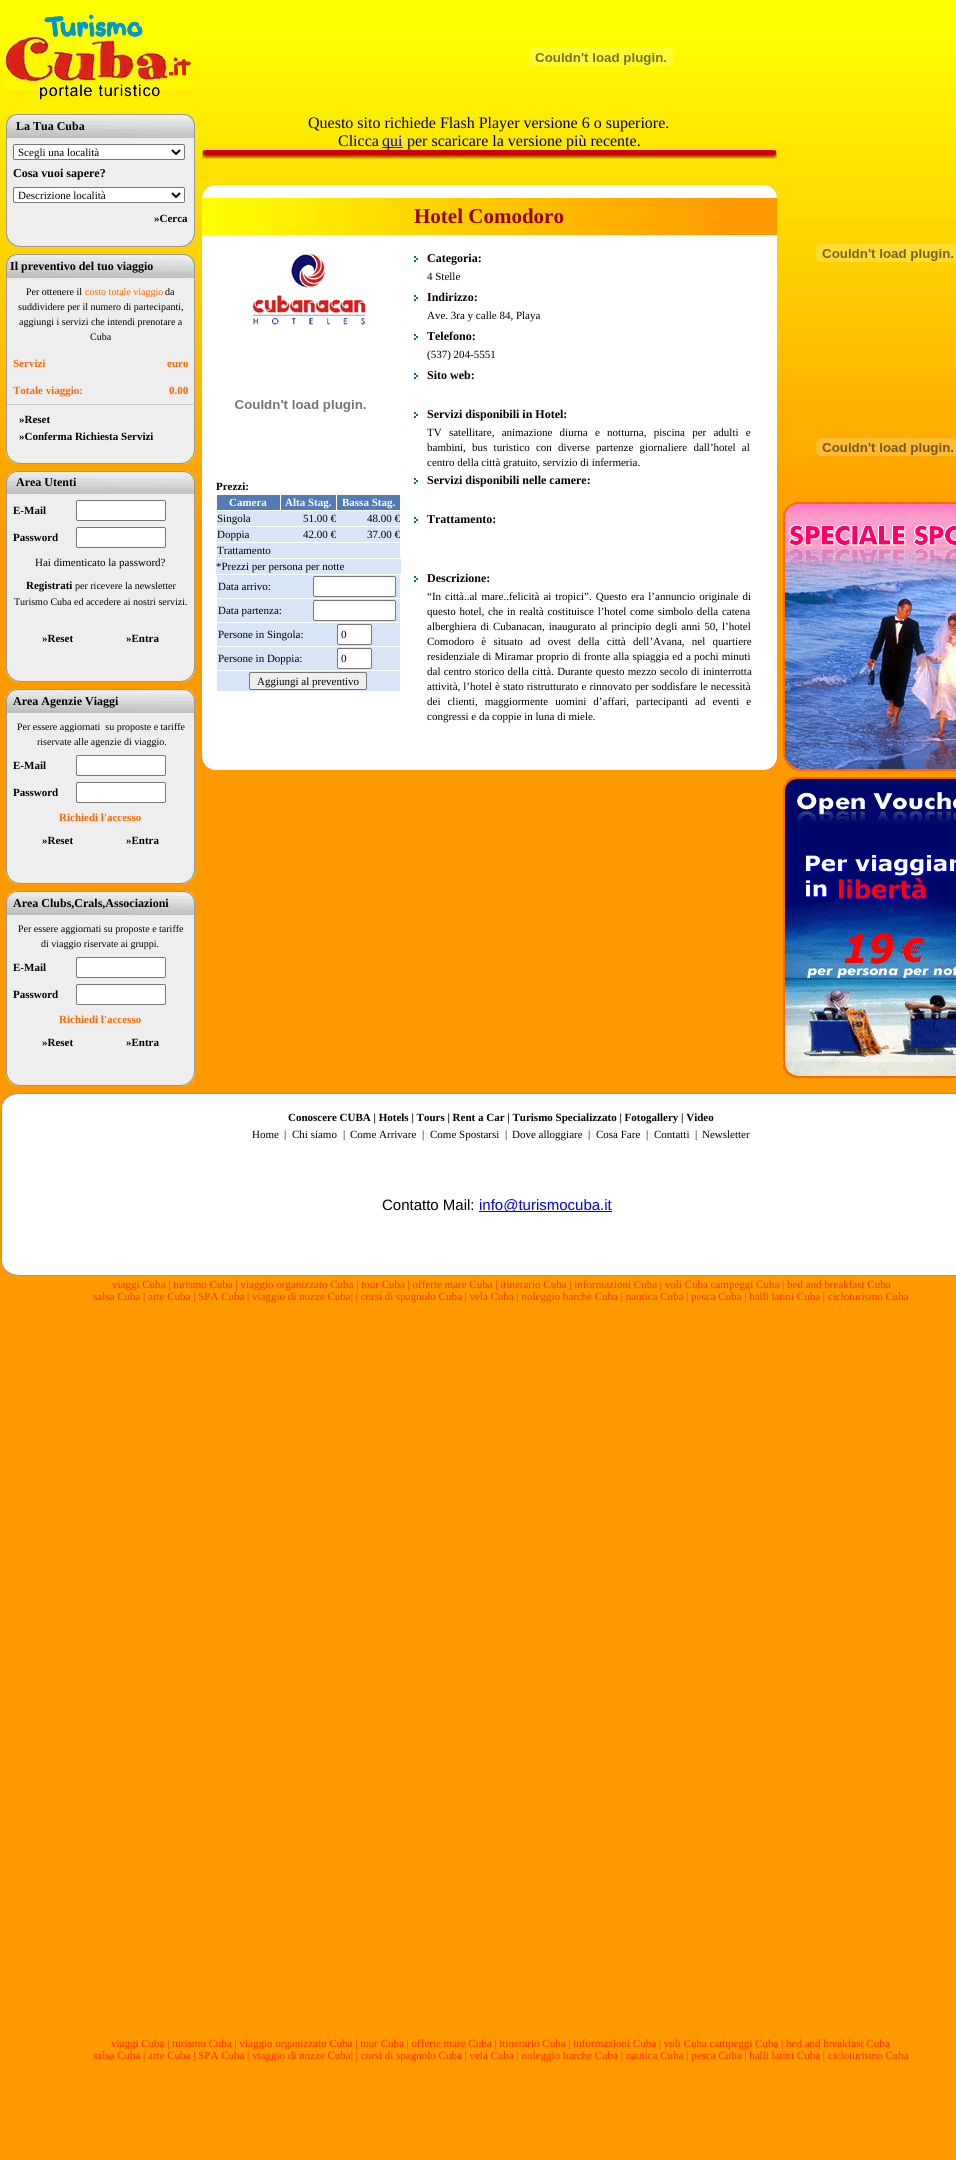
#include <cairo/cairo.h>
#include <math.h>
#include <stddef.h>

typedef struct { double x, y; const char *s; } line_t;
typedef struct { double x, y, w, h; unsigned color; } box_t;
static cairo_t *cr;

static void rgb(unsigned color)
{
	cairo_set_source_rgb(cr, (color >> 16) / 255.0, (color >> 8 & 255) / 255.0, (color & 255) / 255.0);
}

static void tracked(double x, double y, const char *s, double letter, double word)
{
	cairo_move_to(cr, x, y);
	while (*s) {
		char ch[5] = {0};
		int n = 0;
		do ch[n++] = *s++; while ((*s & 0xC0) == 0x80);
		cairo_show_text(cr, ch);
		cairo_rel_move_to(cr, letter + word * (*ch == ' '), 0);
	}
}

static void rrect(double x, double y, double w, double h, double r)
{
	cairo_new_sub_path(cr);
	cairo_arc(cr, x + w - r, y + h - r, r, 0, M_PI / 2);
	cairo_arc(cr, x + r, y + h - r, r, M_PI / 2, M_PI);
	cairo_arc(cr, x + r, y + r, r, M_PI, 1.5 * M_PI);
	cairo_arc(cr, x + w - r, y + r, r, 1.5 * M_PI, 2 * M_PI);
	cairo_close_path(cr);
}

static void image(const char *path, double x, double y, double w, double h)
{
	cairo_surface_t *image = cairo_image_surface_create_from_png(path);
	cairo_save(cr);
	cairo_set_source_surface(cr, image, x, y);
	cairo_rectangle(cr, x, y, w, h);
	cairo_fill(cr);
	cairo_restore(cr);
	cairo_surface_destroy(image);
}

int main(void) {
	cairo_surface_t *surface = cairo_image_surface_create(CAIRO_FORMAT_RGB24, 956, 2160);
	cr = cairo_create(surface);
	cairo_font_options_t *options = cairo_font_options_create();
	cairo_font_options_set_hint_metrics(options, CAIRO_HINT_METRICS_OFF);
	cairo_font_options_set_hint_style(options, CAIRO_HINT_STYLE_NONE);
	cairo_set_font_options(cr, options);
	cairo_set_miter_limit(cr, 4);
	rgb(0xff9900);
	cairo_paint(cr);
	image("img/1.png", 0, 0, 956, 520);
	image("img/2.png", 5, 14, 186, 86);
	image("img/3.png", 529, 48, 144, 18);
	image("img/4.png", 6, 114, 189, 24);
	{
		static const box_t items[] = {
			{7, 138, 187, 96, 0xeeeeee},
			{194, 138, 1, 96, 0x9b9b9b},
			{6, 138, 1, 96, 0x9b9b9b},
		};
		for (size_t i = 0; i < sizeof items / sizeof *items; i++) {
			rgb(items[i].color);
			cairo_rectangle(cr, items[i].x, items[i].y, items[i].w, items[i].h);
			cairo_fill(cr);
		}
	}
	rgb(0xffffff);
	rrect(13.5, 144.5, 171, 15, 1.5);
	cairo_fill_preserve(cr);
	rgb(0x767676);
	cairo_set_line_width(cr, 1);
	cairo_stroke(cr);
	cairo_new_path(cr);
	cairo_move_to(cr, 172, 150);
	cairo_line_to(cr, 176, 154);
	cairo_line_to(cr, 180, 150);
	rgb(0x000000);
	cairo_set_line_width(cr, 2);
	cairo_stroke(cr);
	rgb(0xffffff);
	rrect(13.5, 187.5, 171, 15, 1.5);
	cairo_fill_preserve(cr);
	rgb(0x767676);
	cairo_set_line_width(cr, 1);
	cairo_stroke(cr);
	cairo_new_path(cr);
	cairo_move_to(cr, 172, 193);
	cairo_line_to(cr, 176, 197);
	cairo_line_to(cr, 180, 193);
	rgb(0x000000);
	cairo_set_line_width(cr, 2);
	cairo_stroke(cr);
	image("img/5.png", 6, 234, 189, 13);
	image("img/6.png", 6, 254, 189, 24);
	{
		static const box_t items[] = {
			{7, 278, 187, 173, 0xeeeeee},
			{194, 278, 1, 173, 0x9b9b9b},
			{6, 278, 1, 173, 0x9b9b9b},
			{7, 404, 187, 1, 0xcccccc},
		};
		for (size_t i = 0; i < sizeof items / sizeof *items; i++) {
			rgb(items[i].color);
			cairo_rectangle(cr, items[i].x, items[i].y, items[i].w, items[i].h);
			cairo_fill(cr);
		}
	}
	image("img/7.png", 6, 451, 189, 13);
	image("img/8.png", 6, 471, 189, 23);
	{
		static const box_t items[] = {
			{7, 494, 187, 175, 0xeeeeee},
			{194, 494, 1, 175, 0x9b9b9b},
			{6, 494, 1, 175, 0x9b9b9b},
		};
		for (size_t i = 0; i < sizeof items / sizeof *items; i++) {
			rgb(items[i].color);
			cairo_rectangle(cr, items[i].x, items[i].y, items[i].w, items[i].h);
			cairo_fill(cr);
		}
	}
	rgb(0xffffff);
	rrect(76.5, 500.5, 89, 20, 1.5);
	cairo_fill_preserve(cr);
	rgb(0x767676);
	cairo_set_line_width(cr, 1);
	cairo_stroke(cr);
	rgb(0xffffff);
	rrect(76.5, 527.5, 89, 20, 1.5);
	cairo_fill_preserve(cr);
	rgb(0x767676);
	cairo_stroke(cr);
	image("img/9.png", 6, 669, 189, 13);
	image("img/10.png", 6, 689, 189, 24);
	{
		static const box_t items[] = {
			{7, 713, 187, 158, 0xeeeeee},
			{194, 713, 1, 158, 0x9b9b9b},
			{6, 713, 1, 158, 0x9b9b9b},
		};
		for (size_t i = 0; i < sizeof items / sizeof *items; i++) {
			rgb(items[i].color);
			cairo_rectangle(cr, items[i].x, items[i].y, items[i].w, items[i].h);
			cairo_fill(cr);
		}
	}
	rgb(0xffffff);
	rrect(76.5, 755.5, 89, 20, 1.5);
	cairo_fill_preserve(cr);
	rgb(0x767676);
	cairo_stroke(cr);
	rgb(0xffffff);
	rrect(76.5, 782.5, 89, 20, 1.5);
	cairo_fill_preserve(cr);
	rgb(0x767676);
	cairo_stroke(cr);
	image("img/9.png", 6, 871, 189, 13);
	image("img/10.png", 6, 891, 189, 24);
	{
		static const box_t items[] = {
			{7, 915, 187, 158, 0xeeeeee},
			{194, 915, 1, 158, 0x9b9b9b},
			{6, 915, 1, 158, 0x9b9b9b},
		};
		for (size_t i = 0; i < sizeof items / sizeof *items; i++) {
			rgb(items[i].color);
			cairo_rectangle(cr, items[i].x, items[i].y, items[i].w, items[i].h);
			cairo_fill(cr);
		}
	}
	rgb(0xffffff);
	rrect(76.5, 957.5, 89, 20, 1.5);
	cairo_fill_preserve(cr);
	rgb(0x767676);
	cairo_stroke(cr);
	rgb(0xffffff);
	rrect(76.5, 984.5, 89, 20, 1.5);
	cairo_fill_preserve(cr);
	rgb(0x767676);
	cairo_stroke(cr);
	image("img/9.png", 6, 1073, 189, 13);
	rgb(0x0000ee);
	cairo_rectangle(cr, 382, 147, 21, 1);
	cairo_fill(cr);
	image("img/11.png", 202, 150, 575, 9);
	image("img/12.png", 202, 185, 575, 13);
	image("img/13.png", 202, 198, 575, 37);
	rgb(0xffffff);
	cairo_rectangle(cr, 202, 235, 575, 522);
	cairo_fill(cr);
	image("img/14.png", 252, 253, 114, 72);
	image("img/15.png", 235, 400, 131, 12);
	{
		static const box_t items[] = {
			{217, 495, 63, 15, 0x537cb4},
			{281, 495, 55, 15, 0x537cb4},
			{337, 495, 63, 15, 0x537cb4},
			{217, 511, 183, 15, 0xd7e5f7},
			{217, 527, 183, 15, 0xd7e5f7},
			{217, 543, 183, 15, 0xd7e5f7},
			{216, 559, 185, 15, 0xd7e5f7},
			{217, 575, 183, 23, 0xd7e5f7},
		};
		for (size_t i = 0; i < sizeof items / sizeof *items; i++) {
			rgb(items[i].color);
			cairo_rectangle(cr, items[i].x, items[i].y, items[i].w, items[i].h);
			cairo_fill(cr);
		}
	}
	rgb(0xffffff);
	rrect(313.5, 576.5, 82, 20, 1.5);
	cairo_fill_preserve(cr);
	rgb(0x767676);
	cairo_stroke(cr);
	rgb(0xd7e5f7);
	cairo_rectangle(cr, 217, 599, 183, 23);
	cairo_fill(cr);
	rgb(0xffffff);
	rrect(313.5, 600.5, 82, 20, 1.5);
	cairo_fill_preserve(cr);
	rgb(0x767676);
	cairo_stroke(cr);
	rgb(0xd7e5f7);
	cairo_rectangle(cr, 217, 623, 183, 23);
	cairo_fill(cr);
	rgb(0xffffff);
	rrect(337.5, 624.5, 34, 20, 1.5);
	cairo_fill_preserve(cr);
	rgb(0x767676);
	cairo_stroke(cr);
	rgb(0xd7e5f7);
	cairo_rectangle(cr, 217, 647, 183, 23);
	cairo_fill(cr);
	rgb(0xffffff);
	rrect(337.5, 648.5, 34, 20, 1.5);
	cairo_fill_preserve(cr);
	rgb(0x767676);
	cairo_stroke(cr);
	rgb(0xd7e5f7);
	cairo_rectangle(cr, 217, 671, 183, 20);
	cairo_fill(cr);
	rgb(0xefefef);
	rrect(249.5, 672.5, 117, 17, 1.5);
	cairo_fill_preserve(cr);
	rgb(0x767676);
	cairo_stroke(cr);
	image("img/16.png", 414, 256, 4, 6);
	image("img/16.png", 414, 295, 4, 6);
	image("img/16.png", 414, 334, 4, 6);
	image("img/16.png", 414, 373, 4, 6);
	image("img/16.png", 414, 412, 4, 6);
	image("img/16.png", 414, 478, 4, 6);
	image("img/16.png", 414, 517, 4, 6);
	image("img/16.png", 414, 576, 4, 6);
	image("img/17.png", 202, 757, 575, 13);
	image("img/18.png", 816, 244, 140, 18);
	image("img/19.png", 816, 438, 140, 18);
	image("img/20.png", 783, 502, 173, 269);
	image("img/21.png", 783, 777, 173, 301);
	image("img/22.png", 1, 1093, 955, 14);
	{
		static const box_t items[] = {
			{2, 1107, 954, 155, 0xffffff},
			{1, 1107, 1, 155, 0x9b9b9b},
			{479, 1211, 133, 1, 0x0000ee},
		};
		for (size_t i = 0; i < sizeof items / sizeof *items; i++) {
			rgb(items[i].color);
			cairo_rectangle(cr, items[i].x, items[i].y, items[i].w, items[i].h);
			cairo_fill(cr);
		}
	}
	image("img/23.png", 1, 1262, 955, 14);
	cairo_select_font_face(cr, "Liberation Serif", CAIRO_FONT_SLANT_NORMAL, CAIRO_FONT_WEIGHT_BOLD);
	cairo_set_font_size(cr, 12);
	rgb(0x000000);
	cairo_move_to(cr, 16, 130);
	cairo_show_text(cr, "La Tua Cuba");
	cairo_select_font_face(cr, "Liberation Serif", CAIRO_FONT_SLANT_NORMAL, CAIRO_FONT_WEIGHT_NORMAL);
	cairo_set_font_size(cr, 11);
	cairo_move_to(cr, 18, 156);
	cairo_show_text(cr, "Scegli una località");
	cairo_select_font_face(cr, "Liberation Serif", CAIRO_FONT_SLANT_NORMAL, CAIRO_FONT_WEIGHT_BOLD);
	cairo_set_font_size(cr, 12);
	cairo_move_to(cr, 13, 177);
	cairo_show_text(cr, "Cosa vuoi sapere?");
	cairo_select_font_face(cr, "Liberation Serif", CAIRO_FONT_SLANT_NORMAL, CAIRO_FONT_WEIGHT_NORMAL);
	cairo_set_font_size(cr, 11);
	cairo_move_to(cr, 18, 199);
	cairo_show_text(cr, "Descrizione località");
	cairo_select_font_face(cr, "Liberation Serif", CAIRO_FONT_SLANT_NORMAL, CAIRO_FONT_WEIGHT_BOLD);
	cairo_move_to(cr, 154, 222);
	cairo_show_text(cr, "»Cerca");
	cairo_set_font_size(cr, 12);
	cairo_move_to(cr, 10, 270);
	cairo_show_text(cr, "Il preventivo del tuo viaggio");
	cairo_select_font_face(cr, "Liberation Serif", CAIRO_FONT_SLANT_NORMAL, CAIRO_FONT_WEIGHT_NORMAL);
	cairo_set_font_size(cr, 10);
	cairo_move_to(cr, 26, 295);
	cairo_show_text(cr, "Per ottenere il");
	rgb(0xff6600);
	cairo_move_to(cr, 85, 295);
	cairo_show_text(cr, "costo totale viaggio");
	rgb(0x000000);
	{
		static const line_t items[] = {
			{165, 295, "da"},
			{18, 310, "suddividere per il numero di partecipanti,"},
			{19, 325, "aggiungi i servizi che intendi prenotare a"},
			{90, 340, "Cuba"},
		};
		for (size_t i = 0; i < sizeof items / sizeof *items; i++) {
			cairo_move_to(cr, items[i].x, items[i].y);
			cairo_show_text(cr, items[i].s);
		}
	}
	cairo_select_font_face(cr, "Liberation Serif", CAIRO_FONT_SLANT_NORMAL, CAIRO_FONT_WEIGHT_BOLD);
	cairo_set_font_size(cr, 11);
	rgb(0xff6600);
	{
		static const line_t items[] = {
			{13, 367, "Servizi"},
			{167, 367, "euro"},
			{13, 394, "Totale viaggio:"},
			{169, 394, "0.00"},
		};
		for (size_t i = 0; i < sizeof items / sizeof *items; i++) {
			cairo_move_to(cr, items[i].x, items[i].y);
			cairo_show_text(cr, items[i].s);
		}
	}
	rgb(0x000000);
	cairo_move_to(cr, 19, 423);
	cairo_show_text(cr, "»Reset");
	cairo_move_to(cr, 19, 440);
	cairo_show_text(cr, "»Conferma Richiesta Servizi");
	cairo_set_font_size(cr, 12);
	cairo_move_to(cr, 16, 486);
	cairo_show_text(cr, "Area Utenti");
	cairo_set_font_size(cr, 11);
	cairo_move_to(cr, 13, 514);
	cairo_show_text(cr, "E-Mail");
	cairo_move_to(cr, 13, 541);
	cairo_show_text(cr, "Password");
	cairo_select_font_face(cr, "Liberation Serif", CAIRO_FONT_SLANT_NORMAL, CAIRO_FONT_WEIGHT_NORMAL);
	cairo_move_to(cr, 35, 566);
	cairo_show_text(cr, "Hai dimenticato la password?");
	cairo_select_font_face(cr, "Liberation Serif", CAIRO_FONT_SLANT_NORMAL, CAIRO_FONT_WEIGHT_BOLD);
	cairo_move_to(cr, 26, 589);
	cairo_show_text(cr, "Registrati");
	cairo_select_font_face(cr, "Liberation Serif", CAIRO_FONT_SLANT_NORMAL, CAIRO_FONT_WEIGHT_NORMAL);
	cairo_set_font_size(cr, 10);
	cairo_move_to(cr, 75, 589);
	cairo_show_text(cr, "per ricevere la newsletter");
	cairo_move_to(cr, 14, 605);
	cairo_show_text(cr, "Turismo Cuba ed accedere ai nostri servizi.");
	cairo_select_font_face(cr, "Liberation Serif", CAIRO_FONT_SLANT_NORMAL, CAIRO_FONT_WEIGHT_BOLD);
	cairo_set_font_size(cr, 11);
	cairo_move_to(cr, 42, 642);
	cairo_show_text(cr, "»Reset");
	cairo_move_to(cr, 126, 642);
	cairo_show_text(cr, "»Entra");
	cairo_set_font_size(cr, 12);
	cairo_move_to(cr, 13, 705);
	cairo_show_text(cr, "Area Agenzie Viaggi");
	cairo_select_font_face(cr, "Liberation Serif", CAIRO_FONT_SLANT_NORMAL, CAIRO_FONT_WEIGHT_NORMAL);
	cairo_set_font_size(cr, 10);
	cairo_move_to(cr, 17, 730);
	cairo_show_text(cr, "Per essere aggiornati  su proposte e tariffe");
	cairo_move_to(cr, 37, 745);
	cairo_show_text(cr, "riservate alle agenzie di viaggio.");
	cairo_select_font_face(cr, "Liberation Serif", CAIRO_FONT_SLANT_NORMAL, CAIRO_FONT_WEIGHT_BOLD);
	cairo_set_font_size(cr, 11);
	cairo_move_to(cr, 13, 769);
	cairo_show_text(cr, "E-Mail");
	cairo_move_to(cr, 13, 796);
	cairo_show_text(cr, "Password");
	rgb(0xff6600);
	cairo_move_to(cr, 59, 821);
	cairo_show_text(cr, "Richiedi l'accesso");
	rgb(0x000000);
	cairo_move_to(cr, 42, 844);
	cairo_show_text(cr, "»Reset");
	cairo_move_to(cr, 126, 844);
	cairo_show_text(cr, "»Entra");
	cairo_set_font_size(cr, 12);
	cairo_move_to(cr, 13, 907);
	cairo_show_text(cr, "Area Clubs,Crals,Associazioni");
	cairo_select_font_face(cr, "Liberation Serif", CAIRO_FONT_SLANT_NORMAL, CAIRO_FONT_WEIGHT_NORMAL);
	cairo_set_font_size(cr, 10);
	cairo_move_to(cr, 18, 932);
	cairo_show_text(cr, "Per essere aggiornati su proposte e tariffe");
	cairo_move_to(cr, 41, 947);
	cairo_show_text(cr, "di viaggio riservate ai gruppi.");
	cairo_select_font_face(cr, "Liberation Serif", CAIRO_FONT_SLANT_NORMAL, CAIRO_FONT_WEIGHT_BOLD);
	cairo_set_font_size(cr, 11);
	cairo_move_to(cr, 13, 971);
	cairo_show_text(cr, "E-Mail");
	cairo_move_to(cr, 13, 998);
	cairo_show_text(cr, "Password");
	rgb(0xff6600);
	cairo_move_to(cr, 59, 1023);
	cairo_show_text(cr, "Richiedi l'accesso");
	rgb(0x000000);
	cairo_move_to(cr, 42, 1046);
	cairo_show_text(cr, "»Reset");
	cairo_move_to(cr, 126, 1046);
	cairo_show_text(cr, "»Entra");
	cairo_select_font_face(cr, "Liberation Serif", CAIRO_FONT_SLANT_NORMAL, CAIRO_FONT_WEIGHT_NORMAL);
	cairo_set_font_size(cr, 16);
	cairo_move_to(cr, 308, 128);
	cairo_show_text(cr, "Questo sito richiede Flash Player versione 6 o superiore.");
	cairo_move_to(cr, 338, 146);
	cairo_show_text(cr, "Clicca");
	rgb(0x0000ee);
	cairo_move_to(cr, 382, 146);
	cairo_show_text(cr, "qui");
	rgb(0x000000);
	cairo_move_to(cr, 407, 146);
	cairo_show_text(cr, "per scaricare la versione più recente.");
	cairo_select_font_face(cr, "Liberation Serif", CAIRO_FONT_SLANT_NORMAL, CAIRO_FONT_WEIGHT_BOLD);
	cairo_set_font_size(cr, 21);
	rgb(0x990000);
	cairo_move_to(cr, 414, 223);
	cairo_show_text(cr, "Hotel Comodoro");
	cairo_set_font_size(cr, 11);
	rgb(0x000000);
	cairo_move_to(cr, 216, 490);
	cairo_show_text(cr, "Prezzi:");
	rgb(0xffffff);
	{
		static const line_t items[] = {
			{229, 506, "Camera"},
			{285, 506, "Alta Stag."},
			{342, 506, "Bassa Stag."},
		};
		for (size_t i = 0; i < sizeof items / sizeof *items; i++) {
			cairo_move_to(cr, items[i].x, items[i].y);
			cairo_show_text(cr, items[i].s);
		}
	}
	cairo_select_font_face(cr, "Liberation Serif", CAIRO_FONT_SLANT_NORMAL, CAIRO_FONT_WEIGHT_NORMAL);
	rgb(0x000000);
	{
		static const line_t items[] = {
			{217, 522, "Singola"},
			{303, 522, "51.00 €"},
			{367, 522, "48.00 €"},
			{217, 538, "Doppia"},
			{303, 538, "42.00 €"},
			{367, 538, "37.00 €"},
			{217, 554, "Trattamento"},
			{216, 570, "*Prezzi per persona per notte"},
			{218, 590, "Data arrivo:"},
			{218, 614, "Data partenza:"},
			{218, 638, "Persone in Singola:"},
			{341, 638, "0"},
			{218, 662, "Persone in Doppia:"},
			{341, 662, "0"},
			{257, 685, "Aggiungi al preventivo"},
		};
		for (size_t i = 0; i < sizeof items / sizeof *items; i++) {
			cairo_move_to(cr, items[i].x, items[i].y);
			cairo_show_text(cr, items[i].s);
		}
	}
	cairo_select_font_face(cr, "Liberation Serif", CAIRO_FONT_SLANT_NORMAL, CAIRO_FONT_WEIGHT_BOLD);
	cairo_set_font_size(cr, 12);
	cairo_move_to(cr, 427, 262);
	cairo_show_text(cr, "Categoria:");
	cairo_select_font_face(cr, "Liberation Serif", CAIRO_FONT_SLANT_NORMAL, CAIRO_FONT_WEIGHT_NORMAL);
	cairo_set_font_size(cr, 11);
	cairo_move_to(cr, 427, 280);
	cairo_show_text(cr, "4 Stelle");
	cairo_select_font_face(cr, "Liberation Serif", CAIRO_FONT_SLANT_NORMAL, CAIRO_FONT_WEIGHT_BOLD);
	cairo_set_font_size(cr, 12);
	cairo_move_to(cr, 427, 301);
	cairo_show_text(cr, "Indirizzo:");
	cairo_select_font_face(cr, "Liberation Serif", CAIRO_FONT_SLANT_NORMAL, CAIRO_FONT_WEIGHT_NORMAL);
	cairo_set_font_size(cr, 11);
	cairo_move_to(cr, 427, 319);
	cairo_show_text(cr, "Ave. 3ra y calle 84, Playa");
	cairo_select_font_face(cr, "Liberation Serif", CAIRO_FONT_SLANT_NORMAL, CAIRO_FONT_WEIGHT_BOLD);
	cairo_set_font_size(cr, 12);
	cairo_move_to(cr, 427, 340);
	cairo_show_text(cr, "Telefono:");
	cairo_select_font_face(cr, "Liberation Serif", CAIRO_FONT_SLANT_NORMAL, CAIRO_FONT_WEIGHT_NORMAL);
	cairo_set_font_size(cr, 11);
	cairo_move_to(cr, 427, 358);
	cairo_show_text(cr, "(537) 204-5551");
	cairo_select_font_face(cr, "Liberation Serif", CAIRO_FONT_SLANT_NORMAL, CAIRO_FONT_WEIGHT_BOLD);
	cairo_set_font_size(cr, 12);
	cairo_move_to(cr, 427, 379);
	cairo_show_text(cr, "Sito web:");
	cairo_move_to(cr, 427, 418);
	cairo_show_text(cr, "Servizi disponibili in Hotel:");
	cairo_select_font_face(cr, "Liberation Serif", CAIRO_FONT_SLANT_NORMAL, CAIRO_FONT_WEIGHT_NORMAL);
	cairo_set_font_size(cr, 11);
	tracked(427, 436, "TV satellitare, animazione diurna e notturna, piscina per adulti e", 0, 4.5);
	tracked(427, 451, "bambini, bus turistico con diverse partenze giornaliere dall’hotel al", 0, 3.5);
	cairo_move_to(cr, 427, 466);
	cairo_show_text(cr, "centro della città gratuito, servizio di infermeria.");
	cairo_select_font_face(cr, "Liberation Serif", CAIRO_FONT_SLANT_NORMAL, CAIRO_FONT_WEIGHT_BOLD);
	cairo_set_font_size(cr, 12);
	{
		static const line_t items[] = {
			{427, 484, "Servizi disponibili nelle camere:"},
			{427, 523, "Trattamento:"},
			{427, 582, "Descrizione:"},
		};
		for (size_t i = 0; i < sizeof items / sizeof *items; i++) {
			cairo_move_to(cr, items[i].x, items[i].y);
			cairo_show_text(cr, items[i].s);
		}
	}
	cairo_select_font_face(cr, "Liberation Serif", CAIRO_FONT_SLANT_NORMAL, CAIRO_FONT_WEIGHT_NORMAL);
	cairo_set_font_size(cr, 11);
	tracked(427, 600, "“In città..al mare..felicità ai tropici”. Questo era l’annuncio originale di", 0, 1.25);
	tracked(427, 615, "questo hotel, che in realtà costituisce l’hotel come simbolo della catena", 0, 1);
	tracked(427, 630, "alberghiera di Cubanacan, inaugurato al principio degli anni 50, l’hotel", 0, 1.25);
	tracked(427, 645, "Comodoro è situato ad ovest della città dell’Avana, nel quartiere", 0, 4.5);
	tracked(427, 660, "residenziale di Miramar proprio di fronte alla spiaggia ed a pochi minuti", 0, 0.5);
	tracked(427, 675, "dal centro storico della città. Durante questo mezzo secolo di ininterrotta", 0, 0.5);
	tracked(427, 690, "attività, l’hotel è stato ristrutturato e rinnovato per soddisfare le necessità", 0, 0.25);
	tracked(427, 705, "dei clienti, maggiormente uomini d’affari, partecipanti ad eventi e", 0, 4.25);
	cairo_move_to(cr, 427, 720);
	cairo_show_text(cr, "congressi e da coppie in luna di miele.");
	cairo_select_font_face(cr, "Liberation Serif", CAIRO_FONT_SLANT_NORMAL, CAIRO_FONT_WEIGHT_BOLD);
	cairo_move_to(cr, 288, 1121);
	cairo_show_text(cr, "Conoscere CUBA | Hotels | Tours | Rent a Car | Turismo Specializzato | Fotogallery | Video");
	cairo_select_font_face(cr, "Liberation Serif", CAIRO_FONT_SLANT_NORMAL, CAIRO_FONT_WEIGHT_NORMAL);
	{
		static const line_t items[] = {
			{252, 1138, "Home"},
			{284, 1138, "|"},
			{292, 1138, "Chi siamo"},
			{343, 1138, "|"},
			{350, 1138, "Come Arrivare"},
			{422, 1138, "|"},
			{430, 1138, "Come Spostarsi"},
			{505, 1138, "|"},
			{512, 1138, "Dove alloggiare"},
			{588, 1138, "|"},
			{596, 1138, "Cosa Fare"},
			{646, 1138, "|"},
			{654, 1138, "Contatti"},
			{695, 1138, "|"},
			{702, 1138, "Newsletter"},
		};
		for (size_t i = 0; i < sizeof items / sizeof *items; i++) {
			cairo_move_to(cr, items[i].x, items[i].y);
			cairo_show_text(cr, items[i].s);
		}
	}
	cairo_select_font_face(cr, "Liberation Sans", CAIRO_FONT_SLANT_NORMAL, CAIRO_FONT_WEIGHT_NORMAL);
	cairo_set_font_size(cr, 15);
	cairo_move_to(cr, 382, 1210);
	cairo_show_text(cr, "Contatto Mail:");
	rgb(0x0000ee);
	cairo_move_to(cr, 479, 1210);
	cairo_show_text(cr, "info@turismocuba.it");
	cairo_select_font_face(cr, "Liberation Serif", CAIRO_FONT_SLANT_NORMAL, CAIRO_FONT_WEIGHT_NORMAL);
	cairo_set_font_size(cr, 11);
	rgb(0xff3300);
	{
		static const line_t items[] = {
			{112, 1288, "viaggi Cuba | turismo Cuba | viaggio organizzato Cuba | tour Cuba | offerte mare Cuba | itinerario Cuba | informazioni Cuba | voli Cuba campeggi Cuba | bed and breakfast Cuba"},
			{93, 1300, "salsa Cuba | arte Cuba | SPA Cuba | viaggio di nozze Cuba| | corsi di spagnolo Cuba | vela Cuba | noleggio barche Cuba | nautica Cuba | pesca Cuba | balli latini Cuba | cicloturismo Cuba"},
			{111, 2047, "viaggi Cuba | turismo Cuba | viaggio organizzato Cuba | tour Cuba | offerte mare Cuba | itinerario Cuba | informazioni Cuba | voli Cuba campeggi Cuba | bed and breakfast Cuba"},
			{93, 2059, "salsa Cuba | arte Cuba | SPA Cuba | viaggio di nozze Cuba| | corsi di spagnolo Cuba | vela Cuba | noleggio barche Cuba | nautica Cuba | pesca Cuba | balli latini Cuba | cicloturismo Cuba"},
		};
		for (size_t i = 0; i < sizeof items / sizeof *items; i++) {
			cairo_move_to(cr, items[i].x, items[i].y);
			cairo_show_text(cr, items[i].s);
		}
	}
	cairo_surface_write_to_png(surface, "page.png");
	cairo_font_options_destroy(options);
	cairo_destroy(cr);
	cairo_surface_destroy(surface);
	return 0;
}
